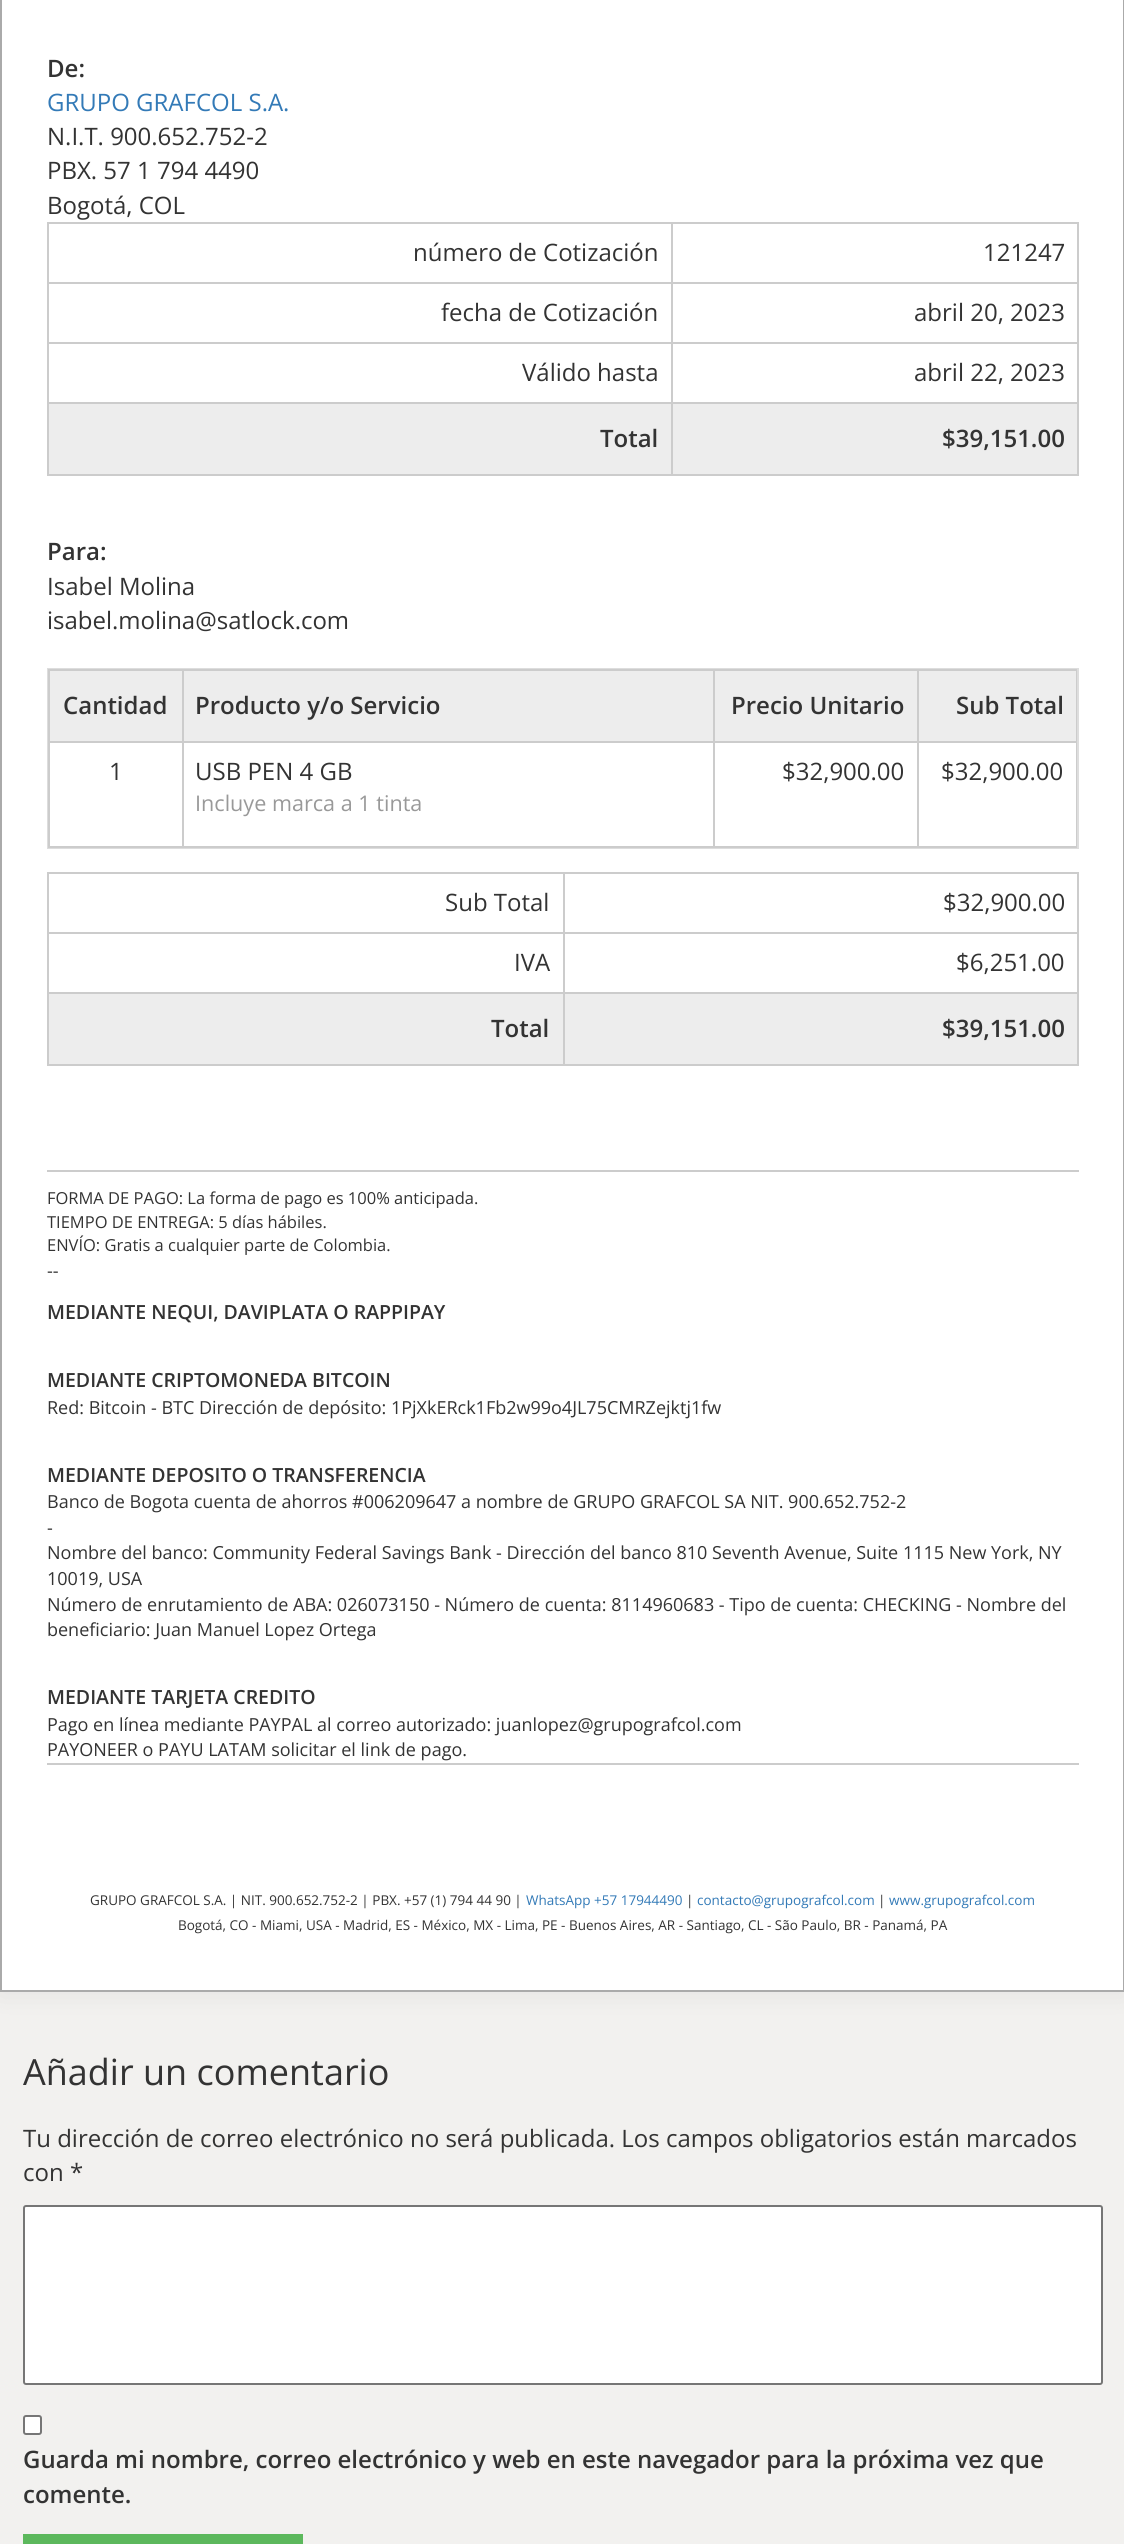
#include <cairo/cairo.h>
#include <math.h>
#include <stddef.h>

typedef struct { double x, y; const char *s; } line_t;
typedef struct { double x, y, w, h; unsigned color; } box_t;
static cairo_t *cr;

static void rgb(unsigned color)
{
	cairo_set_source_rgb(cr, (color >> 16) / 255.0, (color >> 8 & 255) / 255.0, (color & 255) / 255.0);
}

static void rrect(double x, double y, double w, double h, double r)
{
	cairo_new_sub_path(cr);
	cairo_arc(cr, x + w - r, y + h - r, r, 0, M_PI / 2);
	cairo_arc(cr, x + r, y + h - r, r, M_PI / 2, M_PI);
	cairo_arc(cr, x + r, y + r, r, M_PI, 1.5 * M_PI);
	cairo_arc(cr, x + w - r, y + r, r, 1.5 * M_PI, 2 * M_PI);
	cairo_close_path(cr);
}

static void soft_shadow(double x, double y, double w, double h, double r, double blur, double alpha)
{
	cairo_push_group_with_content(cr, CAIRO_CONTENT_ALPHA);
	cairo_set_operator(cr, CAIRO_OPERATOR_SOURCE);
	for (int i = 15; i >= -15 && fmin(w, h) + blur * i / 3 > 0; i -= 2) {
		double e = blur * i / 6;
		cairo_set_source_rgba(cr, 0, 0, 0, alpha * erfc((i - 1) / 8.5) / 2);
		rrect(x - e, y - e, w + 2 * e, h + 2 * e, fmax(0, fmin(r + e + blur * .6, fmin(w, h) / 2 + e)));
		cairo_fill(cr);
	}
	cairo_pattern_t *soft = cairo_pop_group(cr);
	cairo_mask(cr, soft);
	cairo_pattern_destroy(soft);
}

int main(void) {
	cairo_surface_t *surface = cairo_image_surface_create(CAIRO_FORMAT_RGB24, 1124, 2544);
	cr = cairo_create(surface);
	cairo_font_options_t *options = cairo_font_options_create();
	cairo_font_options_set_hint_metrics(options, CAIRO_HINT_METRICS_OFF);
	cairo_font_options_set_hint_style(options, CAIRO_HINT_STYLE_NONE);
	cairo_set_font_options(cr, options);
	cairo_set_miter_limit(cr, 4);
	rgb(0xf2f1ef);
	cairo_paint(cr);
	rgb(0x000000);
	soft_shadow(0, -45, 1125, 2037, 0, 15, 0.07);
	rgb(0xffffff);
	cairo_rectangle(cr, 1, -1, 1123, 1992);
	cairo_fill_preserve(cr);
	rgb(0xaaaaaa);
	cairo_stroke(cr);
	{
		static const box_t items[] = {
			{47, 222, 1032, 2, 0xcccccc},
			{1077, 222, 2, 254, 0xcccccc},
			{47, 474, 1032, 2, 0xcccccc},
			{47, 222, 2, 254, 0xcccccc},
			{671, 282, 408, 2, 0xcccccc},
			{671, 342, 408, 2, 0xcccccc},
			{671, 402, 408, 2, 0xcccccc},
			{671, 402, 2, 74, 0xcccccc},
			{47, 402, 625, 2, 0xcccccc},
			{671, 342, 2, 62, 0xcccccc},
			{47, 342, 625, 2, 0xcccccc},
			{671, 282, 2, 62, 0xcccccc},
			{47, 282, 625, 2, 0xcccccc},
			{671, 222, 2, 62, 0xcccccc},
			{49, 404, 622, 70, 0xededed},
			{673, 404, 404, 70, 0xededed},
		};
		for (size_t i = 0; i < sizeof items / sizeof *items; i++) {
			rgb(items[i].color);
			cairo_rectangle(cr, items[i].x, items[i].y, items[i].w, items[i].h);
			cairo_fill(cr);
		}
	}
	cairo_rectangle(cr, 48, 669, 1030, 179);
	rgb(0xdddddd);
	cairo_stroke(cr);
	{
		static const box_t items[] = {
			{48, 669, 1029, 2, 0xcccccc},
			{1076, 669, 1, 179, 0xcccccc},
			{48, 846, 1029, 2, 0xcccccc},
			{48, 669, 2, 179, 0xcccccc},
			{50, 671, 132, 70, 0xededed},
			{184, 671, 529, 70, 0xededed},
			{917, 741, 160, 2, 0xcccccc},
			{917, 741, 2, 107, 0xcccccc},
			{713, 741, 205, 2, 0xcccccc},
			{713, 741, 2, 107, 0xcccccc},
			{182, 741, 532, 2, 0xcccccc},
			{182, 741, 2, 107, 0xcccccc},
			{48, 741, 135, 2, 0xcccccc},
			{182, 669, 2, 74, 0xcccccc},
			{715, 671, 202, 70, 0xededed},
			{713, 669, 2, 74, 0xcccccc},
			{919, 671, 157, 70, 0xededed},
			{917, 669, 2, 74, 0xcccccc},
			{47, 872, 1032, 2, 0xcccccc},
			{1077, 872, 2, 193, 0xcccccc},
			{47, 1064, 1032, 2, 0xcccccc},
			{47, 872, 2, 193, 0xcccccc},
			{563, 932, 516, 2, 0xcccccc},
			{563, 992, 516, 2, 0xcccccc},
			{563, 992, 2, 73, 0xcccccc},
			{47, 992, 517, 2, 0xcccccc},
			{563, 932, 2, 61, 0xcccccc},
			{47, 932, 517, 2, 0xcccccc},
			{563, 872, 2, 61, 0xcccccc},
			{49, 994, 514, 70, 0xededed},
			{565, 994, 512, 70, 0xededed},
			{47, 1170, 1032, 2, 0xcccccc},
			{47, 1763, 1032, 2, 0xcccccc},
		};
		for (size_t i = 0; i < sizeof items / sizeof *items; i++) {
			rgb(items[i].color);
			cairo_rectangle(cr, items[i].x, items[i].y, items[i].w, items[i].h);
			cairo_fill(cr);
		}
	}
	rgb(0xffffff);
	rrect(24, 2206, 1078, 178, 2);
	cairo_fill_preserve(cr);
	rgb(0x767676);
	cairo_stroke(cr);
	rgb(0xffffff);
	rrect(24, 2416, 17, 18, 2);
	cairo_fill_preserve(cr);
	rgb(0x767676);
	cairo_stroke(cr);
	rgb(0x5cb85c);
	cairo_rectangle(cr, 23, 2534, 280, 10);
	cairo_fill(cr);
	cairo_select_font_face(cr, "Open Sans SemiBold", CAIRO_FONT_SLANT_NORMAL, CAIRO_FONT_WEIGHT_NORMAL);
	cairo_set_font_size(cr, 24);
	rgb(0x333333);
	cairo_move_to(cr, 47, 77);
	cairo_show_text(cr, "De:");
	cairo_select_font_face(cr, "Open Sans", CAIRO_FONT_SLANT_NORMAL, CAIRO_FONT_WEIGHT_NORMAL);
	rgb(0x337ab7);
	cairo_move_to(cr, 47, 111);
	cairo_show_text(cr, "GRUPO GRAFCOL S.A.");
	rgb(0x333333);
	{
		static const line_t items[] = {
			{47, 145, "N.I.T. 900.652.752-2"},
			{47, 179, "PBX. 57 1 794 4490"},
			{47, 214, "Bogotá, COL"},
			{413, 261, "número de Cotización"},
			{983, 261, "121247"},
			{441, 321, "fecha de Cotización"},
			{914, 321, "abril 20, 2023"},
			{522, 381, "Válido hasta"},
			{914, 381, "abril 22, 2023"},
		};
		for (size_t i = 0; i < sizeof items / sizeof *items; i++) {
			cairo_move_to(cr, items[i].x, items[i].y);
			cairo_show_text(cr, items[i].s);
		}
	}
	cairo_select_font_face(cr, "Open Sans SemiBold", CAIRO_FONT_SLANT_NORMAL, CAIRO_FONT_WEIGHT_NORMAL);
	{
		static const line_t items[] = {
			{600, 447, "Total"},
			{942, 447, "$39,151.00"},
			{47, 560, "Para:"},
		};
		for (size_t i = 0; i < sizeof items / sizeof *items; i++) {
			cairo_move_to(cr, items[i].x, items[i].y);
			cairo_show_text(cr, items[i].s);
		}
	}
	cairo_select_font_face(cr, "Open Sans", CAIRO_FONT_SLANT_NORMAL, CAIRO_FONT_WEIGHT_NORMAL);
	cairo_move_to(cr, 47, 595);
	cairo_show_text(cr, "Isabel Molina");
	cairo_move_to(cr, 47, 629);
	cairo_show_text(cr, "isabel.molina@satlock.com");
	cairo_select_font_face(cr, "Open Sans SemiBold", CAIRO_FONT_SLANT_NORMAL, CAIRO_FONT_WEIGHT_NORMAL);
	{
		static const line_t items[] = {
			{63, 714, "Cantidad"},
			{195, 714, "Producto y/o Servicio"},
			{731, 714, "Precio Unitario"},
			{956, 714, "Sub Total"},
		};
		for (size_t i = 0; i < sizeof items / sizeof *items; i++) {
			cairo_move_to(cr, items[i].x, items[i].y);
			cairo_show_text(cr, items[i].s);
		}
	}
	cairo_select_font_face(cr, "Open Sans", CAIRO_FONT_SLANT_NORMAL, CAIRO_FONT_WEIGHT_NORMAL);
	cairo_move_to(cr, 109, 780);
	cairo_show_text(cr, "1");
	cairo_move_to(cr, 195, 780);
	cairo_show_text(cr, "USB PEN 4 GB");
	cairo_set_font_size(cr, 21.6);
	rgb(0x999999);
	cairo_move_to(cr, 195, 811);
	cairo_show_text(cr, "Incluye marca a 1 tinta");
	cairo_set_font_size(cr, 24);
	rgb(0x333333);
	{
		static const line_t items[] = {
			{782, 780, "$32,900.00"},
			{941, 780, "$32,900.00"},
			{445, 911, "Sub Total"},
			{943, 911, "$32,900.00"},
			{514, 971, "IVA"},
			{956, 971, "$6,251.00"},
		};
		for (size_t i = 0; i < sizeof items / sizeof *items; i++) {
			cairo_move_to(cr, items[i].x, items[i].y);
			cairo_show_text(cr, items[i].s);
		}
	}
	cairo_select_font_face(cr, "Open Sans SemiBold", CAIRO_FONT_SLANT_NORMAL, CAIRO_FONT_WEIGHT_NORMAL);
	cairo_move_to(cr, 491, 1037);
	cairo_show_text(cr, "Total");
	cairo_move_to(cr, 942, 1037);
	cairo_show_text(cr, "$39,151.00");
	cairo_select_font_face(cr, "Open Sans", CAIRO_FONT_SLANT_NORMAL, CAIRO_FONT_WEIGHT_NORMAL);
	cairo_set_font_size(cr, 16.5);
	{
		static const line_t items[] = {
			{47, 1204, "FORMA DE PAGO: La forma de pago es 100% anticipada."},
			{47, 1228, "TIEMPO DE ENTREGA: 5 días hábiles."},
			{47, 1251, "ENVÍO: Gratis a cualquier parte de Colombia."},
		};
		for (size_t i = 0; i < sizeof items / sizeof *items; i++) {
			cairo_move_to(cr, items[i].x, items[i].y);
			cairo_show_text(cr, items[i].s);
		}
	}
	cairo_set_font_size(cr, 18);
	cairo_move_to(cr, 47, 1277);
	cairo_show_text(cr, "--");
	cairo_select_font_face(cr, "Open Sans SemiBold", CAIRO_FONT_SLANT_NORMAL, CAIRO_FONT_WEIGHT_NORMAL);
	cairo_set_font_size(cr, 19.5);
	cairo_move_to(cr, 47, 1319);
	cairo_show_text(cr, "MEDIANTE NEQUI, DAVIPLATA O RAPPIPAY");
	cairo_move_to(cr, 47, 1387);
	cairo_show_text(cr, "MEDIANTE CRIPTOMONEDA BITCOIN");
	cairo_select_font_face(cr, "Open Sans", CAIRO_FONT_SLANT_NORMAL, CAIRO_FONT_WEIGHT_NORMAL);
	cairo_set_font_size(cr, 18);
	cairo_move_to(cr, 47, 1414);
	cairo_show_text(cr, "Red: Bitcoin - BTC Dirección de depósito: 1PjXkERck1Fb2w99o4JL75CMRZejktj1fw");
	cairo_select_font_face(cr, "Open Sans SemiBold", CAIRO_FONT_SLANT_NORMAL, CAIRO_FONT_WEIGHT_NORMAL);
	cairo_set_font_size(cr, 19.5);
	cairo_move_to(cr, 47, 1482);
	cairo_show_text(cr, "MEDIANTE DEPOSITO O TRANSFERENCIA");
	cairo_select_font_face(cr, "Open Sans", CAIRO_FONT_SLANT_NORMAL, CAIRO_FONT_WEIGHT_NORMAL);
	cairo_set_font_size(cr, 18);
	{
		static const line_t items[] = {
			{47, 1508, "Banco de Bogota cuenta de ahorros #006209647 a nombre de GRUPO GRAFCOL SA NIT. 900.652.752-2"},
			{47, 1534, "-"},
			{47, 1559, "Nombre del banco: Community Federal Savings Bank - Dirección del banco 810 Seventh Avenue, Suite 1115 New York, NY"},
			{47, 1585, "10019, USA"},
			{47, 1611, "Número de enrutamiento de ABA: 026073150 - Número de cuenta: 8114960683 - Tipo de cuenta: CHECKING - Nombre del"},
			{47, 1636, "beneficiario: Juan Manuel Lopez Ortega"},
		};
		for (size_t i = 0; i < sizeof items / sizeof *items; i++) {
			cairo_move_to(cr, items[i].x, items[i].y);
			cairo_show_text(cr, items[i].s);
		}
	}
	cairo_select_font_face(cr, "Open Sans SemiBold", CAIRO_FONT_SLANT_NORMAL, CAIRO_FONT_WEIGHT_NORMAL);
	cairo_set_font_size(cr, 19.5);
	cairo_move_to(cr, 47, 1704);
	cairo_show_text(cr, "MEDIANTE TARJETA CREDITO");
	cairo_select_font_face(cr, "Open Sans", CAIRO_FONT_SLANT_NORMAL, CAIRO_FONT_WEIGHT_NORMAL);
	cairo_set_font_size(cr, 18);
	cairo_move_to(cr, 47, 1731);
	cairo_show_text(cr, "Pago en línea mediante PAYPAL al correo autorizado: juanlopez@grupografcol.com");
	cairo_move_to(cr, 47, 1756);
	cairo_show_text(cr, "PAYONEER o PAYU LATAM solicitar el link de pago.");
	cairo_set_font_size(cr, 13.5);
	cairo_move_to(cr, 90, 1905);
	cairo_show_text(cr, "GRUPO GRAFCOL S.A. | NIT. 900.652.752-2 | PBX. +57 (1) 794 44 90 |");
	rgb(0x337ab7);
	cairo_move_to(cr, 526, 1905);
	cairo_show_text(cr, "WhatsApp +57 17944490");
	rgb(0x333333);
	cairo_move_to(cr, 686, 1905);
	cairo_show_text(cr, "|");
	rgb(0x337ab7);
	cairo_move_to(cr, 697, 1905);
	cairo_show_text(cr, "contacto@grupografcol.com");
	rgb(0x333333);
	cairo_move_to(cr, 878, 1905);
	cairo_show_text(cr, "|");
	rgb(0x337ab7);
	cairo_move_to(cr, 889, 1905);
	cairo_show_text(cr, "www.grupografcol.com");
	rgb(0x333333);
	cairo_move_to(cr, 178, 1930);
	cairo_show_text(cr, "Bogotá, CO - Miami, USA - Madrid, ES - México, MX - Lima, PE - Buenos Aires, AR - Santiago, CL - São Paulo, BR - Panamá, PA");
	cairo_set_font_size(cr, 36);
	cairo_move_to(cr, 23, 2085);
	cairo_show_text(cr, "Añadir un comentario");
	cairo_set_font_size(cr, 24);
	cairo_move_to(cr, 23, 2147);
	cairo_show_text(cr, "Tu dirección de correo electrónico no será publicada. Los campos obligatorios están marcados");
	cairo_move_to(cr, 23, 2181);
	cairo_show_text(cr, "con *");
	cairo_select_font_face(cr, "Open Sans SemiBold", CAIRO_FONT_SLANT_NORMAL, CAIRO_FONT_WEIGHT_NORMAL);
	cairo_move_to(cr, 23, 2468);
	cairo_show_text(cr, "Guarda mi nombre, correo electrónico y web en este navegador para la próxima vez que");
	cairo_move_to(cr, 23, 2503);
	cairo_show_text(cr, "comente.");
	cairo_surface_write_to_png(surface, "page.png");
	cairo_font_options_destroy(options);
	cairo_destroy(cr);
	cairo_surface_destroy(surface);
	return 0;
}
